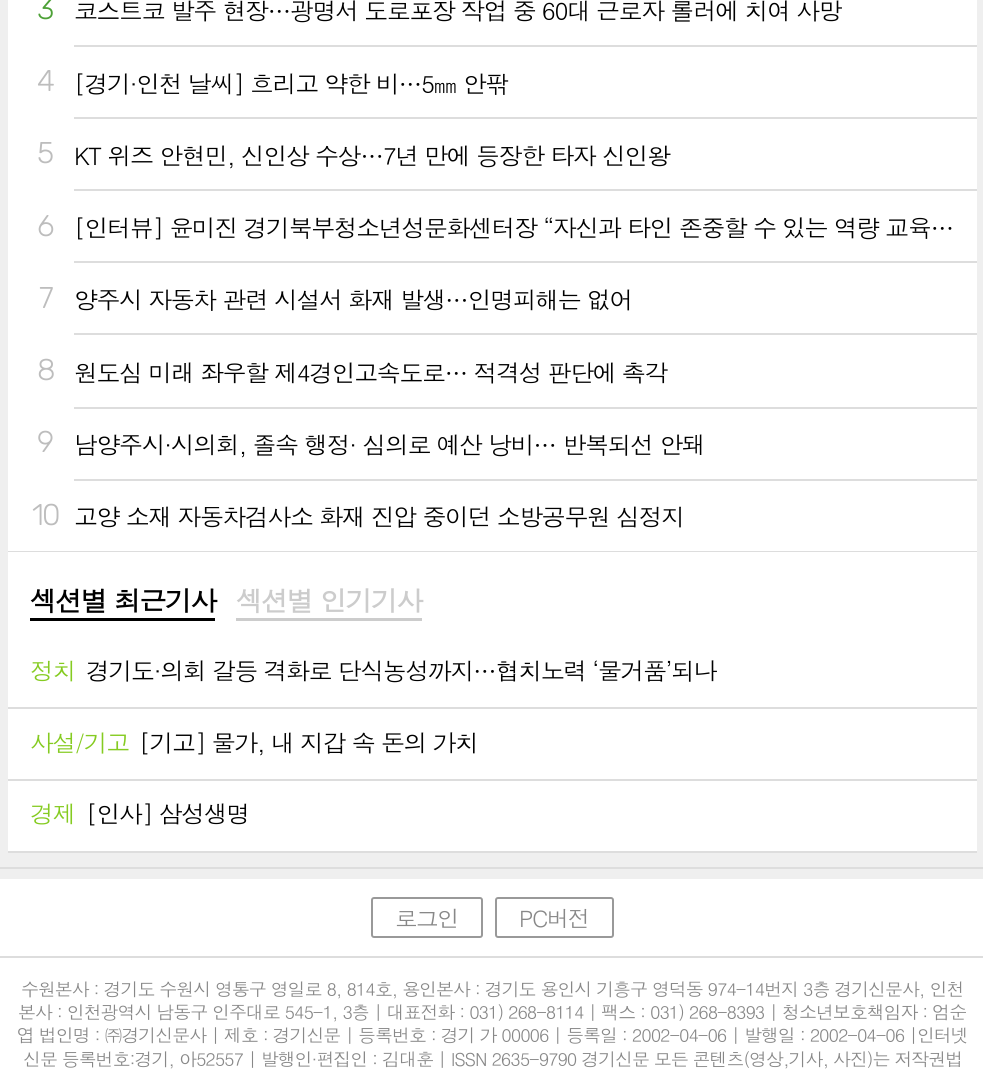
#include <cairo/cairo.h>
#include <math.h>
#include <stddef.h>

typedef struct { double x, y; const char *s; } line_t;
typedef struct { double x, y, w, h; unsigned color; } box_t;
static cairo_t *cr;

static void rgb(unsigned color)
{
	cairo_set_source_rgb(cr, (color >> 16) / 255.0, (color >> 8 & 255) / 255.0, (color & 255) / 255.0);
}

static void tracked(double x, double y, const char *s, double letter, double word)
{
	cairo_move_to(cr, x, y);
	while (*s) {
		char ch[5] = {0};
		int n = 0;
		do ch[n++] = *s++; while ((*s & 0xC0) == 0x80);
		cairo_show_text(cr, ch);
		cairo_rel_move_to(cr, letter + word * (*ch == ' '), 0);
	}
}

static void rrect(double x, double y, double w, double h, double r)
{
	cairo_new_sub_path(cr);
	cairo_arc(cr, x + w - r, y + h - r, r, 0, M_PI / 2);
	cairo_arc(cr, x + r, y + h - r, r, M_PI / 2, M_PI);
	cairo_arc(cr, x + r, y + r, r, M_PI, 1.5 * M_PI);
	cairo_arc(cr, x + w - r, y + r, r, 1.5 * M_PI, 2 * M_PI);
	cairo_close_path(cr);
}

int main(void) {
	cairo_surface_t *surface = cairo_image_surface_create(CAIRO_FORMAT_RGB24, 983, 1081);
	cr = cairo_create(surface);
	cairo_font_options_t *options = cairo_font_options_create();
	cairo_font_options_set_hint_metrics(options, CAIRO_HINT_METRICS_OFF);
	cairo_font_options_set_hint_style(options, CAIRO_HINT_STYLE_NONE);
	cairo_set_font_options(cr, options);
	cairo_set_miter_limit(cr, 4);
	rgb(0xefefef);
	cairo_paint(cr);
	{
		static const box_t items[] = {
			{8, 551, 969, 1, 0xdddddd},
			{8, 0, 969, 551, 0xffffff},
			{74, 45, 903, 2, 0xdddddd},
			{74, 117, 903, 2, 0xdddddd},
			{74, 189, 903, 2, 0xdddddd},
			{74, 261, 903, 2, 0xdddddd},
			{74, 333, 903, 2, 0xdddddd},
			{74, 407, 903, 2, 0xdddddd},
			{74, 479, 903, 2, 0xdddddd},
			{8, 851, 969, 2, 0xdddddd},
			{8, 552, 969, 299, 0xffffff},
			{30, 618, 185, 3, 0x000000},
			{236, 618, 186, 3, 0xcccccc},
			{8, 707, 969, 2, 0xdddddd},
			{8, 779, 969, 2, 0xdddddd},
			{0, 879, 983, 202, 0xffffff},
			{0, 867, 983, 2, 0xdddddd},
			{0, 956, 983, 2, 0xdddddd},
		};
		for (size_t i = 0; i < sizeof items / sizeof *items; i++) {
			rgb(items[i].color);
			cairo_rectangle(cr, items[i].x, items[i].y, items[i].w, items[i].h);
			cairo_fill(cr);
		}
	}
	rrect(372, 898, 110, 39, 2);
	rgb(0x999999);
	cairo_stroke(cr);
	rrect(496, 898, 117, 39, 2);
	cairo_stroke(cr);
	cairo_select_font_face(cr, "Rubik Light", CAIRO_FONT_SLANT_NORMAL, CAIRO_FONT_WEIGHT_NORMAL);
	cairo_set_font_size(cr, 30);
	rgb(0x4da137);
	tracked(37, 19, "3", -2, 0);
	cairo_select_font_face(cr, "Dotum", CAIRO_FONT_SLANT_NORMAL, CAIRO_FONT_WEIGHT_NORMAL);
	cairo_set_font_size(cr, 24);
	rgb(0x000000);
	tracked(74, 20, "코스트코 발주 현장…광명서 도로포장 작업 중 60대 근로자 롤러에 치여 사망", -1.45, 0);
	cairo_select_font_face(cr, "Rubik Light", CAIRO_FONT_SLANT_NORMAL, CAIRO_FONT_WEIGHT_NORMAL);
	cairo_set_font_size(cr, 30);
	rgb(0xbdbdbd);
	tracked(37, 91, "4", -2, 0);
	cairo_select_font_face(cr, "Dotum", CAIRO_FONT_SLANT_NORMAL, CAIRO_FONT_WEIGHT_NORMAL);
	cairo_set_font_size(cr, 24);
	rgb(0x000000);
	tracked(74, 93, "[경기·인천 날씨] 흐리고 약한 비…5㎜ 안팎", -1.45, 0);
	cairo_select_font_face(cr, "Rubik Light", CAIRO_FONT_SLANT_NORMAL, CAIRO_FONT_WEIGHT_NORMAL);
	cairo_set_font_size(cr, 30);
	rgb(0xbdbdbd);
	tracked(37, 163, "5", -2, 0);
	cairo_select_font_face(cr, "Dotum", CAIRO_FONT_SLANT_NORMAL, CAIRO_FONT_WEIGHT_NORMAL);
	cairo_set_font_size(cr, 24);
	rgb(0x000000);
	tracked(74, 165, "KT 위즈 안현민, 신인상 수상…7년 만에 등장한 타자 신인왕", -1.45, 0);
	cairo_select_font_face(cr, "Rubik Light", CAIRO_FONT_SLANT_NORMAL, CAIRO_FONT_WEIGHT_NORMAL);
	cairo_set_font_size(cr, 30);
	rgb(0xbdbdbd);
	tracked(37, 236, "6", -2, 0);
	cairo_select_font_face(cr, "Dotum", CAIRO_FONT_SLANT_NORMAL, CAIRO_FONT_WEIGHT_NORMAL);
	cairo_set_font_size(cr, 24);
	rgb(0x000000);
	tracked(74, 237, "[인터뷰] 윤미진 경기북부청소년성문화센터장 “자신과 타인 존중할 수 있는 역량 교육…", -1.45, 0);
	cairo_select_font_face(cr, "Rubik Light", CAIRO_FONT_SLANT_NORMAL, CAIRO_FONT_WEIGHT_NORMAL);
	cairo_set_font_size(cr, 30);
	rgb(0xbdbdbd);
	tracked(39, 308, "7", -2, 0);
	cairo_select_font_face(cr, "Dotum", CAIRO_FONT_SLANT_NORMAL, CAIRO_FONT_WEIGHT_NORMAL);
	cairo_set_font_size(cr, 24);
	rgb(0x000000);
	tracked(74, 309, "양주시 자동차 관련 시설서 화재 발생…인명피해는 없어", -1.45, 0);
	cairo_select_font_face(cr, "Rubik Light", CAIRO_FONT_SLANT_NORMAL, CAIRO_FONT_WEIGHT_NORMAL);
	cairo_set_font_size(cr, 30);
	rgb(0xbdbdbd);
	tracked(37, 380, "8", -2, 0);
	cairo_select_font_face(cr, "Dotum", CAIRO_FONT_SLANT_NORMAL, CAIRO_FONT_WEIGHT_NORMAL);
	cairo_set_font_size(cr, 24);
	rgb(0x000000);
	tracked(74, 382, "원도심 미래 좌우할 제4경인고속도로… 적격성 판단에 촉각", -1.45, 0);
	cairo_select_font_face(cr, "Rubik Light", CAIRO_FONT_SLANT_NORMAL, CAIRO_FONT_WEIGHT_NORMAL);
	cairo_set_font_size(cr, 30);
	rgb(0xbdbdbd);
	tracked(37, 452, "9", -2, 0);
	cairo_select_font_face(cr, "Dotum", CAIRO_FONT_SLANT_NORMAL, CAIRO_FONT_WEIGHT_NORMAL);
	cairo_set_font_size(cr, 24);
	rgb(0x000000);
	tracked(74, 454, "남양주시·시의회, 졸속 행정· 심의로 예산 낭비… 반복되선 안돼", -1.45, 0);
	cairo_select_font_face(cr, "Rubik Light", CAIRO_FONT_SLANT_NORMAL, CAIRO_FONT_WEIGHT_NORMAL);
	cairo_set_font_size(cr, 30);
	rgb(0xbdbdbd);
	tracked(32, 525, "10", -2, 0);
	cairo_select_font_face(cr, "Dotum", CAIRO_FONT_SLANT_NORMAL, CAIRO_FONT_WEIGHT_NORMAL);
	cairo_set_font_size(cr, 24);
	rgb(0x000000);
	tracked(74, 526, "고양 소재 자동차검사소 화재 진압 중이던 소방공무원 심정지", -1.45, 0);
	cairo_select_font_face(cr, "Dotum", CAIRO_FONT_SLANT_NORMAL, CAIRO_FONT_WEIGHT_BOLD);
	cairo_set_font_size(cr, 27);
	tracked(30, 611, "섹션별 최근기사", -1.5, 0);
	rgb(0xcccccc);
	tracked(236, 611, "섹션별 인기기사", -1.5, 0);
	cairo_select_font_face(cr, "Dotum", CAIRO_FONT_SLANT_NORMAL, CAIRO_FONT_WEIGHT_NORMAL);
	cairo_set_font_size(cr, 24);
	rgb(0x85cb21);
	tracked(30, 680, "정치", -1.45, 0);
	rgb(0x000000);
	tracked(86, 680, "경기도·의회 갈등 격화로 단식농성까지…협치노력 ‘물거품’되나", -1.45, 0);
	rgb(0x85cb21);
	tracked(30, 752, "사설/기고", -1.45, 0);
	rgb(0x000000);
	tracked(139, 752, "[기고] 물가, 내 지갑 속 돈의 가치", -1.45, 0);
	rgb(0x85cb21);
	tracked(30, 823, "경제", -1.45, 0);
	rgb(0x000000);
	tracked(86, 823, "[인사] 삼성생명", -1.45, 0);
	cairo_set_font_size(cr, 22.5);
	rgb(0x888888);
	tracked(395, 927, "로그인", -1.5, 0);
	tracked(519, 927, "PC버전", -1.5, 0);
	cairo_set_font_size(cr, 18);
	{
		static const line_t items[] = {
			{21, 996, "수원본사 : 경기도 수원시 영통구 영일로 8, 814호, 용인본사 : 경기도 용인시 기흥구 영덕동 974-14번지 3층 경기신문사, 인천"},
			{18, 1019, "본사 : 인천광역시 남동구 인주대로 545-1, 3층 | 대표전화 : 031) 268-8114 | 팩스 : 031) 268-8393 | 청소년보호책임자 : 엄순"},
			{17, 1042, "엽 법인명 : ㈜경기신문사 | 제호 : 경기신문 | 등록번호 : 경기 가 00006 | 등록일 : 2002-04-06 | 발행일 : 2002-04-06 |인터넷"},
			{23, 1066, "신문 등록번호:경기, 아52557 | 발행인·편집인 : 김대훈 | ISSN 2635-9790 경기신문 모든 콘텐츠(영상,기사, 사진)는 저작권법"},
		};
		for (size_t i = 0; i < sizeof items / sizeof *items; i++) {
			tracked(items[i].x, items[i].y, items[i].s, -1.08, 0);
		}
	}
	cairo_surface_write_to_png(surface, "page.png");
	cairo_font_options_destroy(options);
	cairo_destroy(cr);
	cairo_surface_destroy(surface);
	return 0;
}
